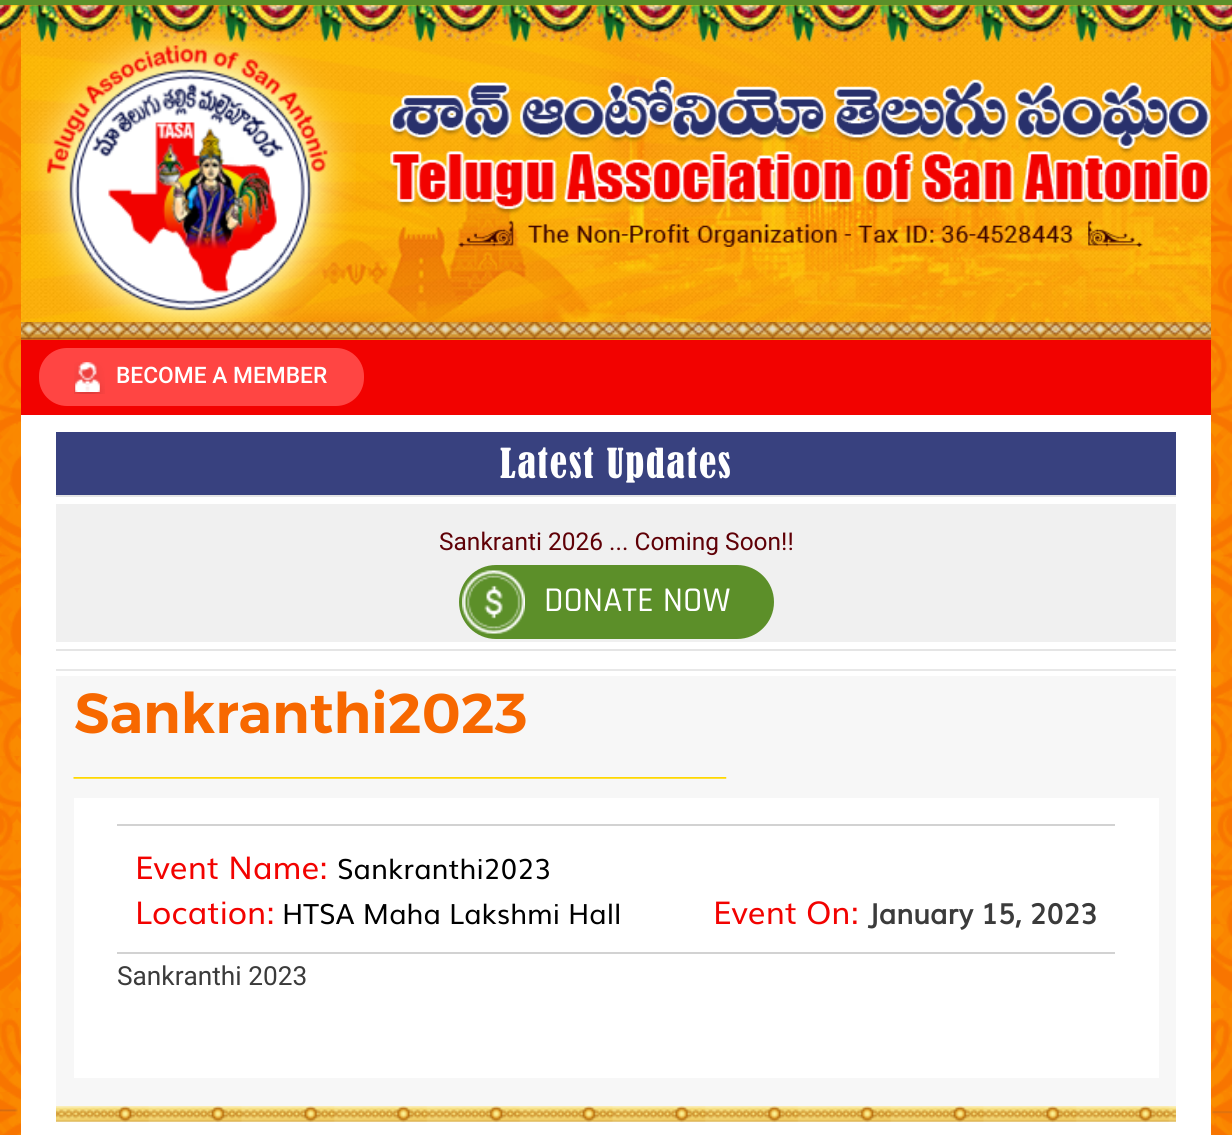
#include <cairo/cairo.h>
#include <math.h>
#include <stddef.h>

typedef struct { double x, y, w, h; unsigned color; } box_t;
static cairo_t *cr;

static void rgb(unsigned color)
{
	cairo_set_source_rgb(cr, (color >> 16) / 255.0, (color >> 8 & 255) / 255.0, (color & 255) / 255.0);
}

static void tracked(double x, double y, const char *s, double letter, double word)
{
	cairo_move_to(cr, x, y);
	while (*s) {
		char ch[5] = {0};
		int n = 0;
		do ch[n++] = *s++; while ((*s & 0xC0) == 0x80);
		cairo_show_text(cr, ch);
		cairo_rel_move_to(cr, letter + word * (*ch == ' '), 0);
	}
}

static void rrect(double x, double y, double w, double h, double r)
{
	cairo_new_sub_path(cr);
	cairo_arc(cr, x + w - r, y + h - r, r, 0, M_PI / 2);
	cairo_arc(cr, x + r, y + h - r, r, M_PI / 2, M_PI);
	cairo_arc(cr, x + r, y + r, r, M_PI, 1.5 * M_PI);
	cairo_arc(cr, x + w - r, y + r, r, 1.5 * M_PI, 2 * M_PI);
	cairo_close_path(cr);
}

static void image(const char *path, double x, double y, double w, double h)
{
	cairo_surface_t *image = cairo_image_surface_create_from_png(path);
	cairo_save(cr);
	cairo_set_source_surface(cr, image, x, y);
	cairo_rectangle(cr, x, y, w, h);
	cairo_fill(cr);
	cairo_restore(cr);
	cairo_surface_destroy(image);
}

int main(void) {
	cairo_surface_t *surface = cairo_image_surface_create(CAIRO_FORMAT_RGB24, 1232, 1135);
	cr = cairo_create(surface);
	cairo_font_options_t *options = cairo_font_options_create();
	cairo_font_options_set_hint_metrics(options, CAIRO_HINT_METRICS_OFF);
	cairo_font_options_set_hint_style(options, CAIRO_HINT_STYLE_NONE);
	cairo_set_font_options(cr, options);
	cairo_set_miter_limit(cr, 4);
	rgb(0xffffff);
	cairo_paint(cr);
	image("img/1.png", 0, 5, 1232, 1130);
	image("img/2.png", 0, 5, 1232, 1130);
	rgb(0x5c8f29);
	cairo_rectangle(cr, 0, 0, 1232, 5);
	cairo_fill(cr);
	image("img/4.png", 21, 7, 1190, 315);
	image("img/6.png", 21, 14, 335, 308);
	image("img/3.png", 0, 5, 1232, 37);
	image("img/5.png", 21, 322, 1190, 18);
	image("img/7.png", 390, 77, 821, 170);
	rgb(0xf20200);
	cairo_rectangle(cr, 21, 340, 1190, 75);
	cairo_fill(cr);
	rgb(0xff4543);
	rrect(39, 348, 325, 58, 28);
	cairo_fill(cr);
	image("img/8.png", 74, 362, 31, 32);
	{
		static const box_t items[] = {
			{21, 415, 1190, 720, 0xffffff},
			{56, 432, 1120, 63, 0x38417f},
			{56, 495, 1120, 2, 0xe5e5e5},
			{56, 649, 1120, 2, 0xe5e5e5},
			{56, 504, 1120, 138, 0xf0f0f0},
		};
		for (size_t i = 0; i < sizeof items / sizeof *items; i++) {
			rgb(items[i].color);
			cairo_rectangle(cr, items[i].x, items[i].y, items[i].w, items[i].h);
			cairo_fill(cr);
		}
	}
	rgb(0x5c8f29);
	rrect(459, 565, 315, 74, 37);
	cairo_fill(cr);
	image("img/9.png", 462, 570, 63, 64);
	rgb(0xe8e8e8);
	cairo_rectangle(cr, 56, 669, 1120, 2);
	cairo_fill(cr);
	rgb(0xf7f7f7);
	cairo_rectangle(cr, 56, 676, 1120, 446);
	cairo_fill(cr);
	image("img/10.png", 56, 1106, 1120, 16);
	image("img/11.png", 73, 777, 654, 2);
	{
		static const box_t items[] = {
			{74, 798, 1085, 280, 0xffffff},
			{117, 824, 998, 2, 0xd2d2d2},
			{117, 952, 998, 2, 0xd2d2d2},
		};
		for (size_t i = 0; i < sizeof items / sizeof *items; i++) {
			rgb(items[i].color);
			cairo_rectangle(cr, items[i].x, items[i].y, items[i].w, items[i].h);
			cairo_fill(cr);
		}
	}
	cairo_select_font_face(cr, "Roboto Medium", CAIRO_FONT_SLANT_NORMAL, CAIRO_FONT_WEIGHT_NORMAL);
	cairo_set_font_size(cr, 22.75);
	rgb(0xffffff);
	cairo_move_to(cr, 116, 383);
	cairo_show_text(cr, "BECOME A MEMBER");
	cairo_select_font_face(cr, "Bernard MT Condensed", CAIRO_FONT_SLANT_NORMAL, CAIRO_FONT_WEIGHT_NORMAL);
	cairo_set_font_size(cr, 38.5);
	tracked(500, 478, "Latest Updates", 1.75, 0);
	cairo_select_font_face(cr, "Roboto", CAIRO_FONT_SLANT_NORMAL, CAIRO_FONT_WEIGHT_NORMAL);
	cairo_set_font_size(cr, 24.5);
	rgb(0x5f0006);
	cairo_move_to(cr, 439, 550);
	cairo_show_text(cr, "Sankranti 2026 ... Coming Soon!!");
	cairo_select_font_face(cr, "Rajdhani Medium", CAIRO_FONT_SLANT_NORMAL, CAIRO_FONT_WEIGHT_NORMAL);
	cairo_set_font_size(cr, 35);
	rgb(0xffffff);
	cairo_move_to(cr, 544, 611);
	cairo_show_text(cr, "DONATE NOW");
	cairo_select_font_face(cr, "Montserrat SemiBold", CAIRO_FONT_SLANT_NORMAL, CAIRO_FONT_WEIGHT_NORMAL);
	cairo_set_font_size(cr, 56);
	rgb(0xf76800);
	cairo_move_to(cr, 74, 733);
	cairo_show_text(cr, "Sankranthi2023");
	cairo_select_font_face(cr, "Muli", CAIRO_FONT_SLANT_NORMAL, CAIRO_FONT_WEIGHT_NORMAL);
	cairo_set_font_size(cr, 31.5);
	rgb(0xf20200);
	cairo_move_to(cr, 135, 879);
	cairo_show_text(cr, "Event Name:");
	cairo_set_font_size(cr, 28);
	rgb(0x000000);
	cairo_move_to(cr, 337, 879);
	cairo_show_text(cr, "Sankranthi2023");
	cairo_set_font_size(cr, 31.5);
	rgb(0xf20200);
	cairo_move_to(cr, 135, 924);
	cairo_show_text(cr, "Location:");
	cairo_set_font_size(cr, 28);
	rgb(0x000000);
	cairo_move_to(cr, 282, 924);
	cairo_show_text(cr, "HTSA Maha Lakshmi Hall");
	cairo_set_font_size(cr, 31.5);
	rgb(0xf20200);
	cairo_move_to(cr, 713, 924);
	cairo_show_text(cr, "Event On:");
	cairo_select_font_face(cr, "Muli", CAIRO_FONT_SLANT_NORMAL, CAIRO_FONT_WEIGHT_BOLD);
	cairo_set_font_size(cr, 28);
	rgb(0x3b3b3b);
	cairo_move_to(cr, 868, 924);
	cairo_show_text(cr, "January 15, 2023");
	cairo_select_font_face(cr, "Roboto", CAIRO_FONT_SLANT_NORMAL, CAIRO_FONT_WEIGHT_NORMAL);
	cairo_set_font_size(cr, 26.25);
	cairo_move_to(cr, 117, 985);
	cairo_show_text(cr, "Sankranthi 2023");
	cairo_surface_write_to_png(surface, "page.png");
	cairo_font_options_destroy(options);
	cairo_destroy(cr);
	cairo_surface_destroy(surface);
	return 0;
}
